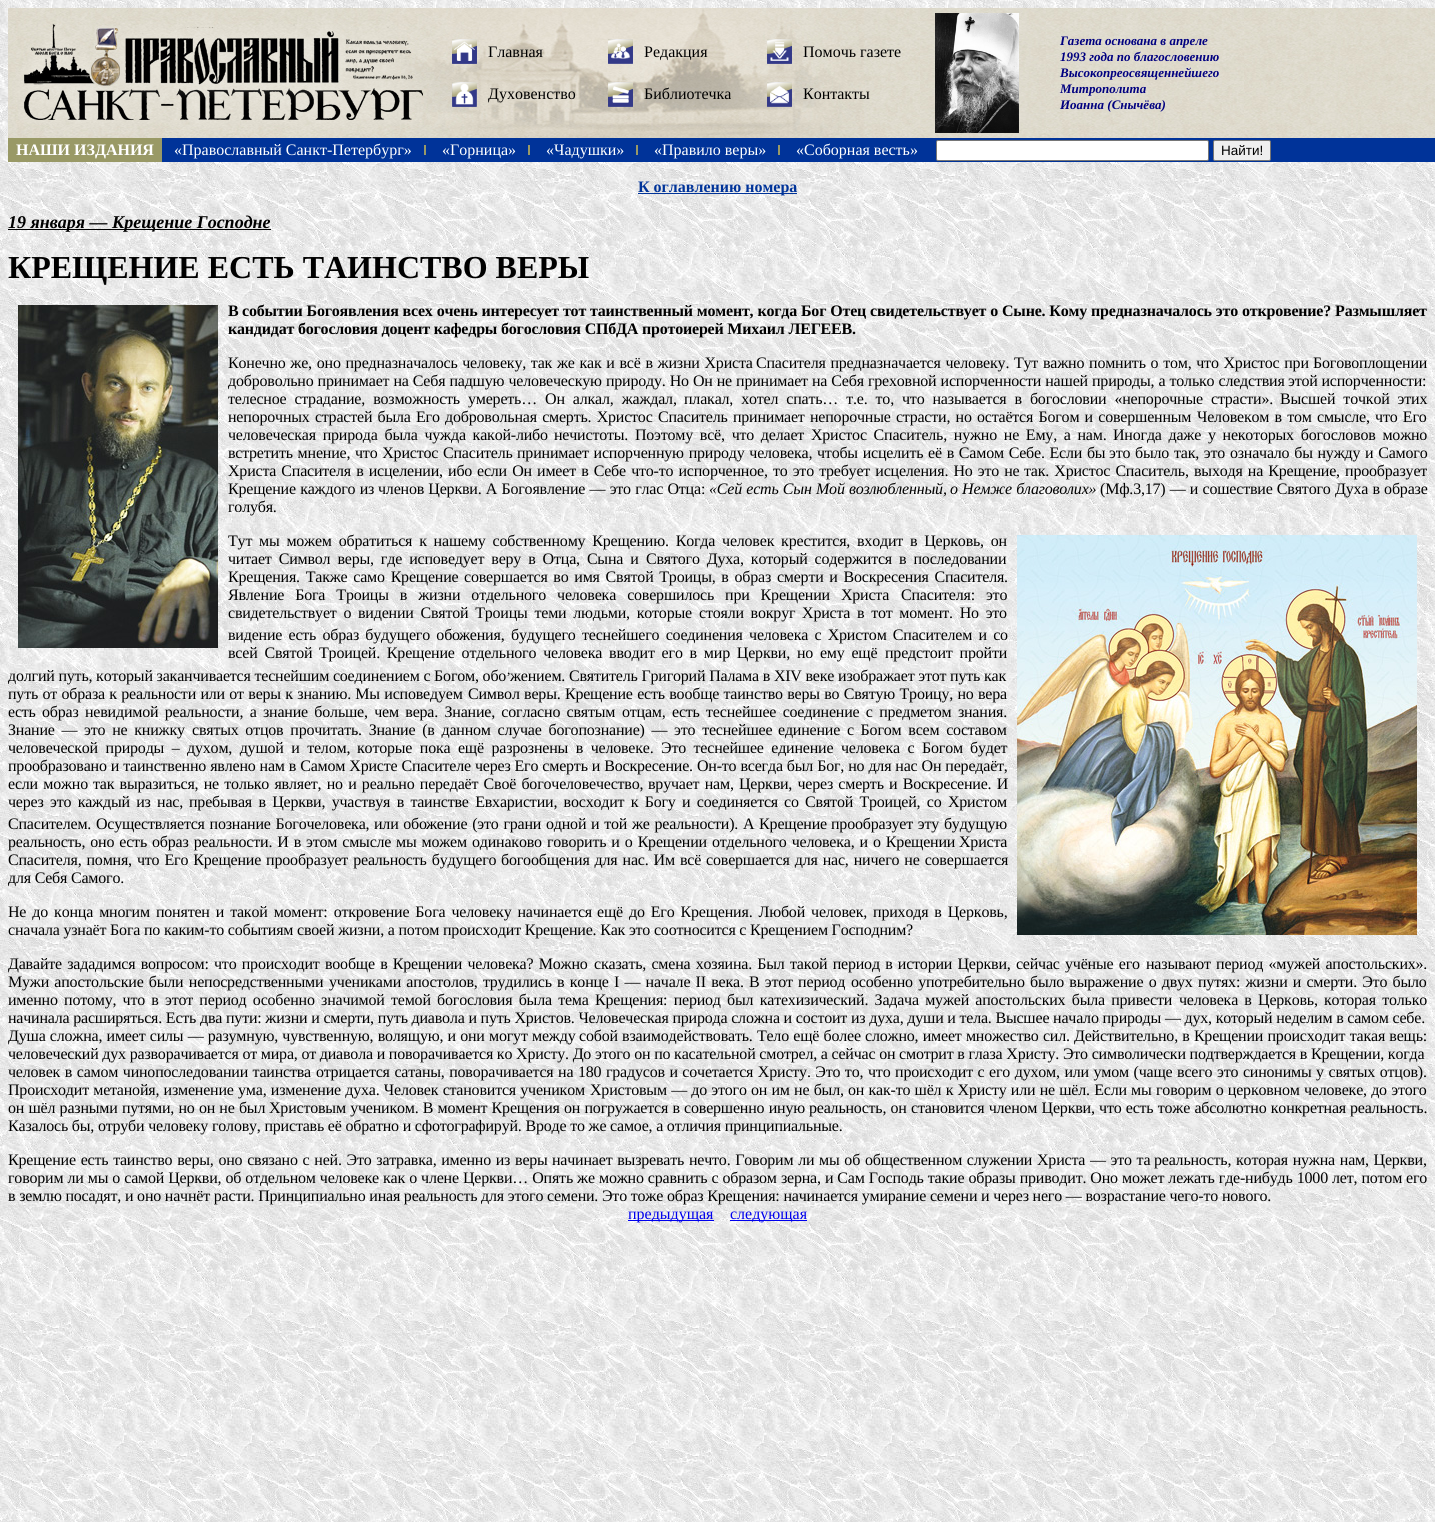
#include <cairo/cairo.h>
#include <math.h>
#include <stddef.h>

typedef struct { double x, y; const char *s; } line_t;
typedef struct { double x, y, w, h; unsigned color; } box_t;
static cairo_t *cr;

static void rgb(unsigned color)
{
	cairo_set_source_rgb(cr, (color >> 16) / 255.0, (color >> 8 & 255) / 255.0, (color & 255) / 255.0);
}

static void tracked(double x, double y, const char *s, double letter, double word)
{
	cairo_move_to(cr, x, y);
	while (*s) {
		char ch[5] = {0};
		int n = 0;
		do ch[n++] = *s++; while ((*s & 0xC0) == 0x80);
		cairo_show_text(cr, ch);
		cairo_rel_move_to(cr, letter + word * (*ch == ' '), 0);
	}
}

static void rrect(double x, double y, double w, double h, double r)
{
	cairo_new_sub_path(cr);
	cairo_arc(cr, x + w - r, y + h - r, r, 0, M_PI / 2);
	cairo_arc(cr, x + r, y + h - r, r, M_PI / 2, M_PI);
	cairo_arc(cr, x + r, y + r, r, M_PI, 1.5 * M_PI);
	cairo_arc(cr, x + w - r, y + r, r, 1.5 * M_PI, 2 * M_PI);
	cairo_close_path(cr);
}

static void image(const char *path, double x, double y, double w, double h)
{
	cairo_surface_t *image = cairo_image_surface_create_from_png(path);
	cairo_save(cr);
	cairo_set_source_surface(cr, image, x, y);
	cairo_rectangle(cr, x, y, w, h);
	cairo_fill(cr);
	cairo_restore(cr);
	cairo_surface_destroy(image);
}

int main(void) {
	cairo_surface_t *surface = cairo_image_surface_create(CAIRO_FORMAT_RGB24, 1435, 1522);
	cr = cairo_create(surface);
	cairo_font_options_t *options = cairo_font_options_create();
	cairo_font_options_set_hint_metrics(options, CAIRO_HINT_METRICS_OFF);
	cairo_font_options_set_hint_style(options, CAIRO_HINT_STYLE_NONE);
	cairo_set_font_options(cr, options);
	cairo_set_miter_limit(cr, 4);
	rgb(0xffffff);
	cairo_paint(cr);
	image("img/1.png", 0, 0, 1435, 1522);
	image("img/2.png", 8, 8, 912, 130);
	image("img/3.png", 452, 39, 25, 25);
	image("img/4.png", 608, 39, 25, 25);
	image("img/5.png", 767, 39, 25, 25);
	image("img/6.png", 452, 82, 25, 25);
	image("img/7.png", 608, 82, 25, 25);
	image("img/8.png", 767, 82, 25, 25);
	image("img/9.png", 920, 8, 15, 130);
	image("img/10.png", 935, 8, 111, 130);
	image("img/11.png", 935, 13, 84, 120);
	image("img/12.png", 1046, 8, 389, 130);
	{
		static const box_t items[] = {
			{8, 138, 154, 24, 0x999966},
			{162, 138, 1273, 24, 0x003399},
			{424, 145, 2, 10, 0x999967},
			{528, 145, 2, 10, 0x999967},
			{636, 145, 2, 10, 0x999967},
			{778, 145, 2, 10, 0x999967},
		};
		for (size_t i = 0; i < sizeof items / sizeof *items; i++) {
			rgb(items[i].color);
			cairo_rectangle(cr, items[i].x, items[i].y, items[i].w, items[i].h);
			cairo_fill(cr);
		}
	}
	rgb(0xffffff);
	rrect(936.5, 140.5, 272, 20, 1.5);
	cairo_fill_preserve(cr);
	rgb(0x767676);
	cairo_set_line_width(cr, 1);
	cairo_stroke(cr);
	rgb(0xefefef);
	rrect(1213.5, 140.5, 57, 20, 1.5);
	cairo_fill_preserve(cr);
	rgb(0x767676);
	cairo_stroke(cr);
	rgb(0x003399);
	cairo_rectangle(cr, 638, 193, 159, 1);
	cairo_fill(cr);
	rgb(0x000000);
	cairo_rectangle(cr, 8, 229, 263, 1);
	cairo_fill(cr);
	image("img/13.png", 18, 305, 200, 343);
	image("img/14.png", 1017, 535, 400, 400);
	rgb(0x0000ee);
	cairo_rectangle(cr, 628, 1220, 86, 1);
	cairo_fill(cr);
	cairo_rectangle(cr, 730, 1220, 77, 1);
	cairo_fill(cr);
	cairo_select_font_face(cr, "Liberation Serif", CAIRO_FONT_SLANT_NORMAL, CAIRO_FONT_WEIGHT_NORMAL);
	cairo_set_font_size(cr, 16);
	rgb(0x000000);
	{
		static const line_t items[] = {
			{488, 57, "Главная"},
			{644, 57, "Редакция"},
			{803, 57, "Помочь газете"},
			{488, 99, "Духовенство"},
			{644, 99, "Библиотечка"},
			{803, 99, "Контакты"},
		};
		for (size_t i = 0; i < sizeof items / sizeof *items; i++) {
			cairo_move_to(cr, items[i].x, items[i].y);
			cairo_show_text(cr, items[i].s);
		}
	}
	cairo_select_font_face(cr, "Liberation Serif", CAIRO_FONT_SLANT_ITALIC, CAIRO_FONT_WEIGHT_BOLD);
	cairo_set_font_size(cr, 13);
	rgb(0x000080);
	{
		static const line_t items[] = {
			{1060, 45, "Газета основана в апреле"},
			{1060, 61, "1993 года по благословению"},
			{1060, 77, "Высокопреосвященнейшего"},
			{1060, 93, "Митрополита"},
			{1060, 109, "Иоанна (Снычёва)"},
		};
		for (size_t i = 0; i < sizeof items / sizeof *items; i++) {
			cairo_move_to(cr, items[i].x, items[i].y);
			cairo_show_text(cr, items[i].s);
		}
	}
	cairo_select_font_face(cr, "Liberation Serif", CAIRO_FONT_SLANT_NORMAL, CAIRO_FONT_WEIGHT_BOLD);
	cairo_set_font_size(cr, 16);
	rgb(0xffffff);
	cairo_move_to(cr, 16, 155);
	cairo_show_text(cr, "НАШИ ИЗДАНИЯ");
	cairo_select_font_face(cr, "Liberation Serif", CAIRO_FONT_SLANT_NORMAL, CAIRO_FONT_WEIGHT_NORMAL);
	{
		static const line_t items[] = {
			{174, 155, "«Православный Санкт-Петербург»"},
			{442, 155, "«Горница»"},
			{546, 155, "«Чадушки»"},
			{654, 155, "«Правило веры»"},
			{796, 155, "«Соборная весть»"},
		};
		for (size_t i = 0; i < sizeof items / sizeof *items; i++) {
			cairo_move_to(cr, items[i].x, items[i].y);
			cairo_show_text(cr, items[i].s);
		}
	}
	cairo_select_font_face(cr, "Liberation Sans", CAIRO_FONT_SLANT_NORMAL, CAIRO_FONT_WEIGHT_NORMAL);
	cairo_set_font_size(cr, 13.5);
	rgb(0x000000);
	cairo_move_to(cr, 1221, 155);
	cairo_show_text(cr, "Найти!");
	cairo_select_font_face(cr, "Liberation Serif", CAIRO_FONT_SLANT_NORMAL, CAIRO_FONT_WEIGHT_BOLD);
	cairo_set_font_size(cr, 16);
	rgb(0x003399);
	cairo_move_to(cr, 638, 192);
	cairo_show_text(cr, "К оглавлению номера");
	cairo_select_font_face(cr, "Liberation Serif", CAIRO_FONT_SLANT_ITALIC, CAIRO_FONT_WEIGHT_BOLD);
	cairo_set_font_size(cr, 18);
	rgb(0x000000);
	cairo_move_to(cr, 8, 228);
	cairo_show_text(cr, "19 января — Крещение Господне");
	cairo_select_font_face(cr, "Liberation Serif", CAIRO_FONT_SLANT_NORMAL, CAIRO_FONT_WEIGHT_BOLD);
	cairo_set_font_size(cr, 32);
	cairo_move_to(cr, 8, 278);
	cairo_show_text(cr, "КРЕЩЕНИЕ ЕСТЬ ТАИНСТВО ВЕРЫ");
	cairo_set_font_size(cr, 16);
	tracked(228, 316, "В", -0.2, 0);
	tracked(242, 316, "событии Богоявления всех очень интересует тот таинственный момент, когда Бог Отец свидетельствует о Сыне. Кому предназначалось это откровение? Размышляет", -0.2, 0.2);
	tracked(228, 334, "кандидат богословия доцент кафедры богословия СПбДА протоиерей Михаил ЛЕГЕЕВ.", -0.2, 0);
	cairo_select_font_face(cr, "Liberation Serif", CAIRO_FONT_SLANT_NORMAL, CAIRO_FONT_WEIGHT_NORMAL);
	tracked(228, 368, "Конечно же, оно предназначалось человеку, так же как и всё в жизни Христа", -0.2, 1);
	tracked(756, 368, "Спасителя предназначается человеку. Тут важно помнить о том, что Христос при", -0.2, 1);
	tracked(1313, 368, "Боговоплощении", -0.2, 0);
	tracked(228, 386, "добровольно принимает на Себя падшую человеческую природу. Но Он не принимает на Себя греховной испорченности нашей природы, а только следствия", -0.2, 0.3);
	tracked(1288, 386, "этой испорченности:", -0.2, 0);
	{
		static const line_t items[] = {
			{228, 404, "телесное страдание, возможность умереть… Он алкал, жаждал,"},
			{684, 404, "плакал, хотел спать… т.е. то, что называется в богословии «непорочные страсти»."},
			{1280, 404, "Высшей точкой этих"},
		};
		for (size_t i = 0; i < sizeof items / sizeof *items; i++) {
			tracked(items[i].x, items[i].y, items[i].s, -0.2, 4.25);
		}
	}
	{
		static const line_t items[] = {
			{228, 422, "непорочных страстей была Его добровольная смерть. Христос"},
			{658, 422, "Спаситель принимает непорочные страсти, но остаётся Богом и совершенным"},
			{1197, 422, "Человеком в том смысле, что Его"},
		};
		for (size_t i = 0; i < sizeof items / sizeof *items; i++) {
			tracked(items[i].x, items[i].y, items[i].s, -0.2, 1.5);
		}
	}
	{
		static const line_t items[] = {
			{228, 440, "человеческая природа была чужда какой-либо"},
			{554, 440, "нечистоты. Поэтому всё, что делает Христос Спаситель, нужно не Ему, а нам."},
			{1113, 440, "Иногда даже у некоторых богословов можно"},
		};
		for (size_t i = 0; i < sizeof items / sizeof *items; i++) {
			tracked(items[i].x, items[i].y, items[i].s, -0.2, 3);
		}
	}
	{
		static const line_t items[] = {
			{228, 458, "встретить мнение, что Христос Спаситель"},
			{517, 458, "принимает испорченную природу человека, чтобы исцелить её в Самом Себе. Если бы"},
			{1109, 458, "это было так, это означало бы нужду и Самого"},
		};
		for (size_t i = 0; i < sizeof items / sizeof *items; i++) {
			tracked(items[i].x, items[i].y, items[i].s, -0.2, 1);
		}
	}
	{
		static const line_t items[] = {
			{228, 476, "Христа Спасителя в исцелении, ибо"},
			{477, 476, "если Он имеет в Себе что-то испорченное, то это требует исцеления. Но это не"},
			{1024, 476, "так. Христос Спаситель, выходя на Крещение, прообразует"},
		};
		for (size_t i = 0; i < sizeof items / sizeof *items; i++) {
			tracked(items[i].x, items[i].y, items[i].s, -0.2, 1.4);
		}
	}
	tracked(228, 494, "Крещение каждого из", -0.2, 0.5);
	tracked(378, 494, "членов Церкви. А Богоявление — это глас Отца:", -0.2, 0.5);
	cairo_select_font_face(cr, "Liberation Serif", CAIRO_FONT_SLANT_ITALIC, CAIRO_FONT_WEIGHT_NORMAL);
	tracked(709, 494, "«Сей есть Сын Мой возлюбленный,", -0.2, 0.5);
	tracked(950, 494, "о Немже благоволих»", -0.2, 0.5);
	cairo_select_font_face(cr, "Liberation Serif", CAIRO_FONT_SLANT_NORMAL, CAIRO_FONT_WEIGHT_NORMAL);
	tracked(1100, 494, "(Мф.3,17) — и сошествие Святого Духа в образе", -0.2, 0.5);
	tracked(228, 512, "голубя.", -0.2, 0);
	tracked(228, 546, "Тут", -0.2, 0);
	tracked(259, 546, "мы можем обратиться к нашему собственному Крещению. Когда человек крестится,", -0.2, 3.1);
	tracked(857, 546, "входит в Церковь, он", -0.2, 3.1);
	tracked(228, 564, "читает Символ веры, где исповедует веру в Отца, Сына и", -0.2, 3.25);
	tracked(646, 564, "Святого Духа, который содержится в последовании", -0.2, 3.25);
	tracked(228, 582, "Крещения. Также само Крещение", -0.2, 2);
	tracked(464, 582, "совершается во имя Святой Троицы, в образ смерти и Воскресения Спасителя.", -0.2, 2);
	tracked(228, 600, "Явление Бога Троицы в жизни отдельного человека совершилось при Крещении Христа", -0.2, 7.25);
	tracked(901, 600, "Спасителя: это", -0.2, 7.25);
	tracked(228, 618, "свидетельствует о видении Святой Троицы теми людьми, которые", -0.2, 3);
	tracked(699, 618, "стояли вокруг Христа в тот момент. Но это", -0.2, 3);
	tracked(228, 640, "видение есть образ будущего обо", -0.2, 2.5);
	tracked(459, 640, "жения,", -0.2, 0);
	tracked(511, 640, "будущего теснейшего соединения человека с Христом Спасителем и со", -0.2, 2.5);
	{
		static const line_t items[] = {
			{228, 658, "всей Святой"},
			{319, 658, "Троицей. Крещение отдельного человека вводит его в мир Церкви, но ему ещё"},
			{885, 658, "предстоит пройти"},
		};
		for (size_t i = 0; i < sizeof items / sizeof *items; i++) {
			tracked(items[i].x, items[i].y, items[i].s, -0.2, 3.1);
		}
	}
	tracked(8, 681, "долгий путь, который заканчивается теснейшим соединением с Богом, обо", -0.2, 0);
	cairo_set_font_size(cr, 13.5);
	tracked(507, 674, ",", -0.2, 0);
	cairo_set_font_size(cr, 16);
	tracked(510, 681, "жением. Святитель Григорий Палама в XIV веке изображает этот путь как", -0.2, 0);
	tracked(8, 699, "путь от образа к реальности или от веры к знанию. Мы исповедуем", -0.2, 0.6);
	tracked(468, 699, "Символ веры. Крещение есть вообще таинство веры во Святую Троицу, но вера", -0.2, 0.6);
	tracked(8, 717, "есть", -0.2, 0);
	tracked(42, 717, "образ невидимой реальности, а знание больше, чем вера. Знание, согласно святым", -0.2, 2.6);
	tracked(622, 717, "отцам, есть теснейшее соединение с предметом знания.", -0.2, 2.6);
	{
		static const line_t items[] = {
			{8, 735, "Знание — это не книжку"},
			{192, 735, "святых отцов прочитать. Знание (в данном случае богопознание) — это теснейшее"},
			{778, 735, "единение с Богом всем составом"},
		};
		for (size_t i = 0; i < sizeof items / sizeof *items; i++) {
			tracked(items[i].x, items[i].y, items[i].s, -0.2, 3);
		}
	}
	tracked(8, 753, "человеческой природы – духом, душой и телом,", -0.2, 3.75);
	tracked(357, 753, "которые пока ещё разрознены в человеке. Это теснейшее единение человека с Богом", -0.2, 3.75);
	tracked(970, 753, "будет", -0.2, 0);
	tracked(8, 771, "прообразовано и таинственно явлено нам в Самом Христе Спасителе через Его смерть и Воскресение. Он-то всегда был Бог, но для нас Он передаёт,", -0.2, 0.25);
	{
		static const line_t items[] = {
			{8, 789, "если можно"},
			{93, 789, "так выразиться, не только являет, но и реально передаёт Своё богочеловечество,"},
			{648, 789, "вручает нам, Церкви, через смерть и Воскресение. И"},
		};
		for (size_t i = 0; i < sizeof items / sizeof *items; i++) {
			tracked(items[i].x, items[i].y, items[i].s, -0.2, 1.5);
		}
	}
	{
		static const line_t items[] = {
			{8, 807, "через это каждый из нас,"},
			{189, 807, "пребывая в Церкви, участвуя в таинстве Евхаристии, восходит к Богу и соединяется"},
			{784, 807, "со Святой Троицей, со Христом"},
		};
		for (size_t i = 0; i < sizeof items / sizeof *items; i++) {
			tracked(items[i].x, items[i].y, items[i].s, -0.2, 2.6);
		}
	}
	{
		static const line_t items[] = {
			{8, 829, "Спасителем. Осуществляется познание Богочеловека,"},
			{374, 829, "или обо"},
			{426, 829, "жение (это грани одной и той же реальности). А Крещение"},
			{831, 829, "прообразует эту будущую"},
		};
		for (size_t i = 0; i < sizeof items / sizeof *items; i++) {
			tracked(items[i].x, items[i].y, items[i].s, -0.2, 1);
		}
	}
	tracked(8, 847, "реальность, оно есть образ реальности. И в этом смысле", -0.2, 1.25);
	tracked(396, 847, "мы можем одинаково говорить и о Крещении отдельного человека, и о Крещении", -0.2, 1.25);
	tracked(959, 847, "Христа", -0.2, 0);
	tracked(8, 865, "Спасителя, помня, что Его Крещение прообразует реальность будущего", -0.2, 1.25);
	tracked(501, 865, "богообщения для нас. Им всё совершается для нас, ничего не совершается", -0.2, 1.25);
	tracked(8, 883, "для Себя Самого.", -0.2, 0);
	tracked(8, 917, "Не до конца многим понятен и такой момент: откровение Бога человеку начинается", -0.2, 2.25);
	tracked(597, 917, "ещё до Его Крещения. Любой человек, приходя в Церковь,", -0.2, 2.25);
	tracked(8, 935, "сначала узнаёт Бога по каким-то событиям своей жизни, а потом происходит Крещение. Как это соотносится с Крещением Господним?", -0.2, 0);
	{
		static const line_t items[] = {
			{8, 969, "Давайте зададимся вопросом: что происходит вообще в Крещении человека? Можно"},
			{594, 969, "сказать, смена хозяина. Был такой период в истории Церкви, сейчас учёные его"},
			{1146, 969, "называют период «мужей апостольских»."},
			{8, 987, "Мужи апостольские были непосредственными"},
			{329, 987, "учениками апостолов, трудились в конце I — начале II века. В этот период"},
			{851, 987, "особенно употребительно было выражение о двух путях: жизни и смерти. Это было"},
		};
		for (size_t i = 0; i < sizeof items / sizeof *items; i++) {
			tracked(items[i].x, items[i].y, items[i].s, -0.2, 1.5);
		}
	}
	{
		static const line_t items[] = {
			{8, 1005, "именно потому, что в этот период особенно значимой темой богословия была тема"},
			{595, 1005, "Крещения: период был катехизический. Задача мужей апостольских была привести"},
			{1179, 1005, "человека в Церковь, которая только"},
		};
		for (size_t i = 0; i < sizeof items / sizeof *items; i++) {
			tracked(items[i].x, items[i].y, items[i].s, -0.2, 2.5);
		}
	}
	tracked(8, 1023, "начинала расширяться. Есть два пути: жизни и смерти, путь диавола и путь Христов. Человеческая природа сложна и состоит из духа, души и тела. Высшее начало природы — дух, который неделим в самом себе.", -0.2, 0);
	{
		static const line_t items[] = {
			{8, 1041, "Душа сложна, имеет силы — разумную, чувственную, волящую, и они могут между"},
			{579, 1041, "собой взаимодействовать. Тело ещё более сложно, имеет множество сил."},
			{1074, 1041, "Действительно, в Крещении происходит такая вещь:"},
		};
		for (size_t i = 0; i < sizeof items / sizeof *items; i++) {
			tracked(items[i].x, items[i].y, items[i].s, -0.2, 0.5);
		}
	}
	tracked(8, 1059, "человеческий дух разворачивается от мира, от диавола и поворачивается ко Христу. До этого он по касательной смотрел, а сейчас он смотрит в глаза Христу. Это символически подтверждается в Крещении, когда", -0.2, 0);
	{
		static const line_t items[] = {
			{8, 1077, "человек в самом чинопоследовании таинства"},
			{316, 1077, "отрицается сатаны, поворачивается на 180 градусов и сочетается Христу. Это то,"},
			{868, 1077, "что происходит с его духом, или умом (чаще всего это синонимы у святых отцов)."},
		};
		for (size_t i = 0; i < sizeof items / sizeof *items; i++) {
			tracked(items[i].x, items[i].y, items[i].s, -0.2, 0.8);
		}
	}
	{
		static const line_t items[] = {
			{8, 1095, "Происходит метанойя, изменение ума, изменение духа. Человек становится учеником"},
			{590, 1095, "Христовым — до этого он им не был, он как-то шёл к Христу или не шёл. Если мы"},
			{1156, 1095, "говорим о церковном человеке, до этого"},
			{8, 1113, "он шёл разными путями, но он не был"},
			{269, 1113, "Христовым учеником. В момент Крещения он погружается в совершенно иную"},
			{809, 1113, "реальность, он становится членом Церкви, что есть тоже абсолютно конкретная"},
		};
		for (size_t i = 0; i < sizeof items / sizeof *items; i++) {
			tracked(items[i].x, items[i].y, items[i].s, -0.2, 0.5);
		}
	}
	tracked(1350, 1113, "реальность.", -0.2, 0);
	tracked(8, 1131, "Казалось бы, отруби человеку голову, приставь её обратно и сфотографируй. Вроде то же самое, а отличия принципиальные.", -0.2, 0);
	{
		static const line_t items[] = {
			{8, 1165, "Крещение есть таинство веры, оно связано с ней. Это затравка, именно из веры"},
			{552, 1165, "начинает вызревать нечто. Говорим ли мы об общественном служении Христа — это та"},
			{1154, 1165, "реальность, которая нужна нам, Церкви,"},
		};
		for (size_t i = 0; i < sizeof items / sizeof *items; i++) {
			tracked(items[i].x, items[i].y, items[i].s, -0.2, 1);
		}
	}
	tracked(8, 1183, "говорим ли мы о самой Церкви, об отдельном человеке как о члене Церкви… Опять же можно сравнить с образом зерна, и Сам Господь такие образы приводит. Оно может лежать где-нибудь 1000 лет, потом", -0.2, 0.3);
	tracked(1406, 1183, "его", -0.2, 0);
	tracked(8, 1201, "в землю посадят, и оно начнёт расти. Принципиально иная реальность для этого семени. Это тоже образ Крещения: начинается умирание семени и через него — возрастание чего-то нового.", -0.2, 0);
	rgb(0x0000ee);
	cairo_move_to(cr, 628, 1219);
	cairo_show_text(cr, "предыдущая");
	cairo_move_to(cr, 730, 1219);
	cairo_show_text(cr, "следующая");
	cairo_surface_write_to_png(surface, "page.png");
	cairo_font_options_destroy(options);
	cairo_destroy(cr);
	cairo_surface_destroy(surface);
	return 0;
}
